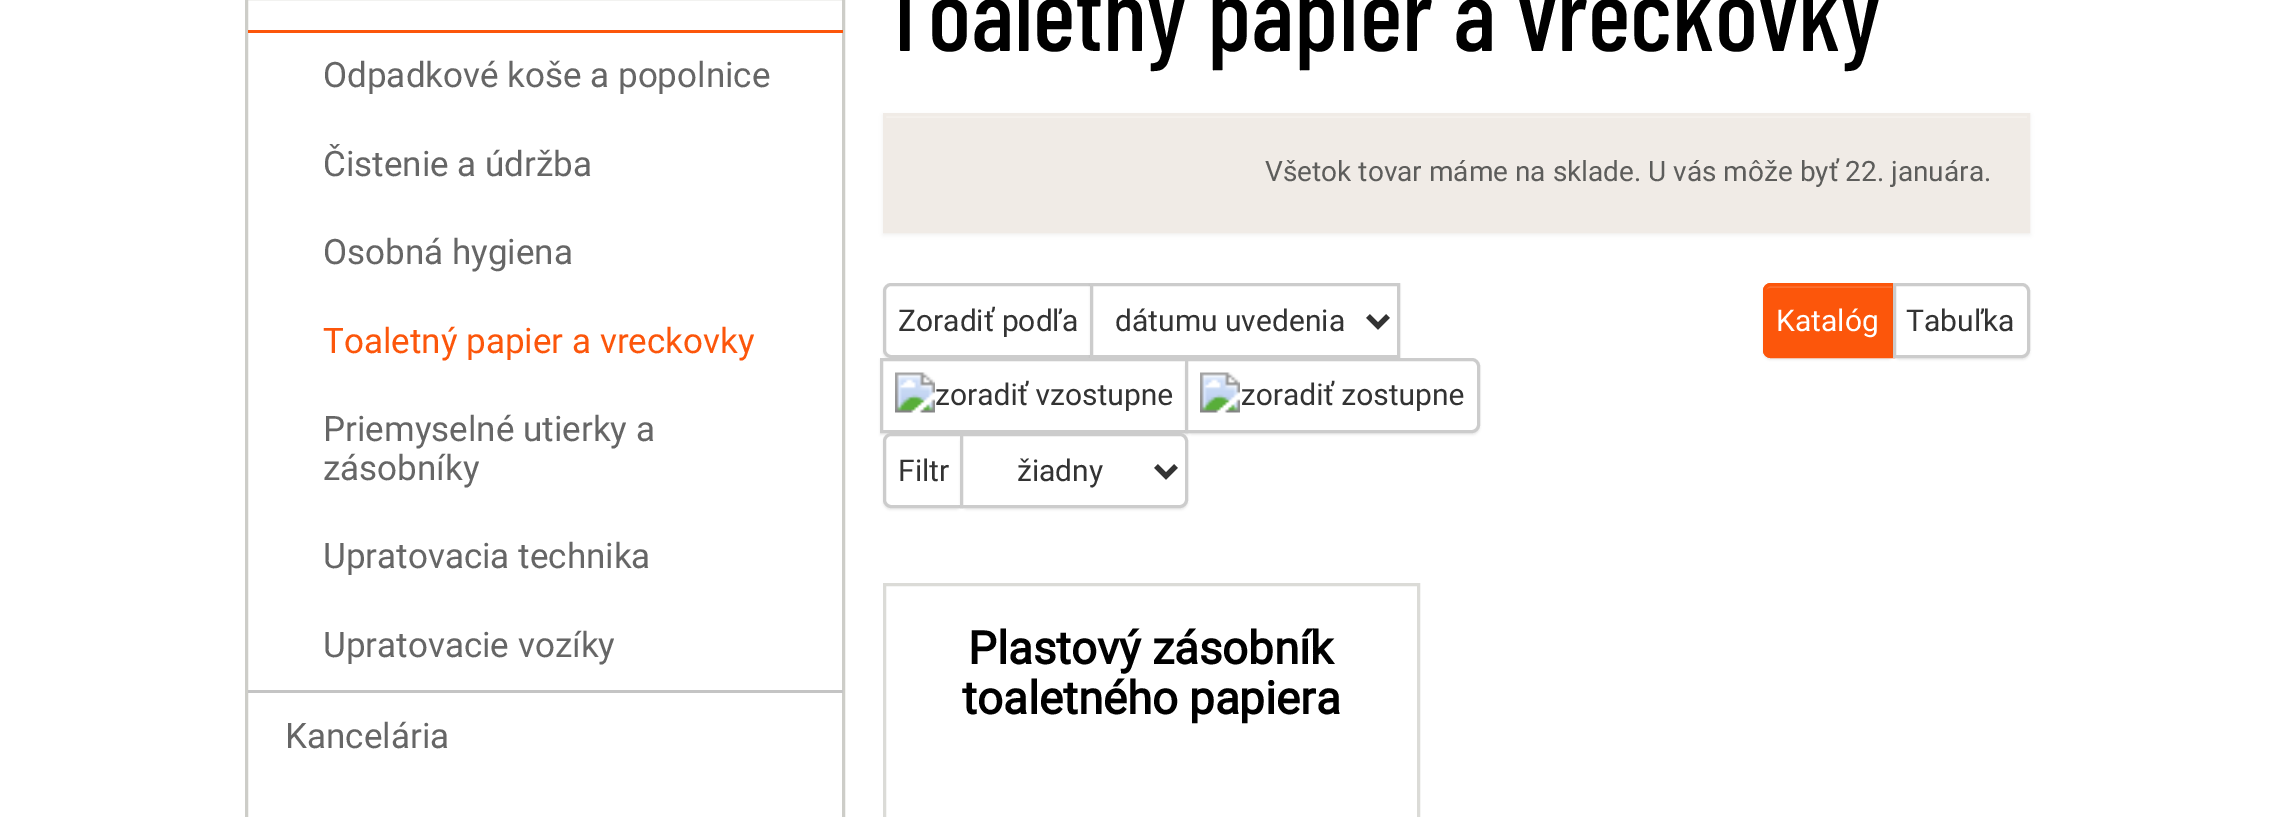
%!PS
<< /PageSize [2289 817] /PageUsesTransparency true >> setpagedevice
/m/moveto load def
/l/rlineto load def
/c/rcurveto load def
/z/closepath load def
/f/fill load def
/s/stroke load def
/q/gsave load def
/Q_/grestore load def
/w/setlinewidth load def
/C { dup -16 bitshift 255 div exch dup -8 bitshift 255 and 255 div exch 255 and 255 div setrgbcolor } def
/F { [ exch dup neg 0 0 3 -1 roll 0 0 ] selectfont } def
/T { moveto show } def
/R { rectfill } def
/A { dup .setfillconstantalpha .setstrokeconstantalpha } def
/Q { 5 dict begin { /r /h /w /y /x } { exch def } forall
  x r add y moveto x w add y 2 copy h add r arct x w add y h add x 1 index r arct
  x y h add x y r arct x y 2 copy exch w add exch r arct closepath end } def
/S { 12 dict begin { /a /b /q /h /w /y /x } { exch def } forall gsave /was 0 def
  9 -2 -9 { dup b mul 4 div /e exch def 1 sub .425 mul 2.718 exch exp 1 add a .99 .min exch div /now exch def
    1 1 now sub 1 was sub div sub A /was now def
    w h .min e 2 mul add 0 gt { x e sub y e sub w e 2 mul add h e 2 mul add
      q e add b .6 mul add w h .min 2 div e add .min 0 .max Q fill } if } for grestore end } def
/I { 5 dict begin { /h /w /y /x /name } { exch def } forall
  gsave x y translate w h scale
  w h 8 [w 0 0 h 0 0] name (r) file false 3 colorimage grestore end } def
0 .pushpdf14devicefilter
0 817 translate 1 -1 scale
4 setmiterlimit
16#FFFFFF C
0 0 2289 817 R
16#CDCDC8 C
3 w
246.5 -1.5 597 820 rectstroke
16#FC560B C
248 30 595 3 R
16#C4C4C4 C
248 690 595 3 R
/Roboto-Regular 35 F
16#666666 C
(Odpadkové koše a popolnice) 323 87 T
(Čistenie a údržba) 323 176 T
(Osobná hygiena) 323 264 T
16#FC560B C
(Toaletný papier a vreckovky) 323 353 T
16#666666 C
(Priemyselné utierky a) 323 441 T
(zásobníky) 323 480 T
(Upratovacia technika) 323 568 T
(Upratovacie vozíky) 323 657 T
(Kancelária) 285 748 T
/BarlowCondensed-Medium 101.5 F
16#000000 C
(Toaletný papier a vreckovky) 883 51 T
883 115 1147 120 0 2.5 .05 S
16#F0EBE6 C
886 118 1141 112 R
16#F4F0EC C
885 116 1143 2 R
16#F0EBE6 C
884.5 114.5 1144 117 rectstroke
/Roboto-Regular 28 F
16#5D5D5B C
(Všetok tovar máme na sklade. U vás môže byť 22. januára.) 1265 181 T
16#000000 C
883 285 210 75 8 1 .07 S
16#FFFFFF C
891 284.5 m 200.5 0 l 0 72 l -200.5 0 l -3.5 0 -6.5 -3 -6.5 -6.5 c 0 -59 l 0 -3.5 3 -6.5 6.5 -6.5 c z q f Q_
16#CCCCCC C
s
/Roboto-Regular 30 F
16#333333 C
(Zoradiť podľa) 898 331 T
16#000000 C
1090 285 310 75 0 1 .07 S
16#FFFFFF C
1091.5 284.5 m 307 0 l 0 72 l -307 0 l z q f Q_
16#CCCCCC C
s
16#333333 C
5 w
1368 316 m 10 10 l 10 -10 l s
(dátumu uvedenia) 1115 331 T
16#000000 C
880 360 308 75 0 1 .07 S
16#FFFFFF C
881.5 359.5 m 305 0 l 0 72 l -305 0 l z q f Q_
16#CCCCCC C
3 w
s
(1.rgb) 895 372 278 41 I
16#000000 C
1185 360 295 75 8 1 .07 S
16#FFFFFF C
1186.5 359.5 m 285.5 0 l 3.5 0 6.5 3 6.5 6.5 c 0 59 l 0 3.5 -3 6.5 -6.5 6.5 c -285.5 0 l z q f Q_
16#CCCCCC C
s
(2.rgb) 1200 372 264 41 I
16#000000 C
883 435 80 75 8 1 .07 S
16#FFFFFF C
891 434.5 m 70.5 0 l 0 72 l -70.5 0 l -3.5 0 -6.5 -3 -6.5 -6.5 c 0 -59 l 0 -3.5 3 -6.5 6.5 -6.5 c z q f Q_
16#CCCCCC C
s
16#333333 C
(Filtr) 898 481 T
16#000000 C
960 435 228 75 8 1 .07 S
16#FFFFFF C
961.5 434.5 m 218.5 0 l 3.5 0 6.5 3 6.5 6.5 c 0 59 l 0 3.5 -3 6.5 -6.5 6.5 c -218.5 0 l z q f Q_
16#CCCCCC C
s
16#333333 C
5 w
1156 466 m 10 10 l 10 -10 l s
(žiadny) 1017 481 T
16#000000 C
1763 285 132 75 8 1 .07 S
16#FC560B C
1771 283 m 124 0 l 0 75 l -124 0 l -4.5 0 -8 -3.5 -8 -8 c 0 -59 l 0 -4.5 3.5 -8 8 -8 c z f
16#FC6F30 C
1770 288 m 122 0 l 0 67 l 1 0 l 0 -70 l -123 0 l -3 0 -5 2 -5 5 c 0 2 l 0 -2 2 -4 5 -4 c z f
16#FC560B C
3 w
1771 284.5 m 122.5 0 l 0 72 l -122.5 0 l -3.5 0 -6.5 -3 -6.5 -6.5 c 0 -59 l 0 -3.5 3 -6.5 6.5 -6.5 c z s
16#FFFFFF C
(Katalóg) 1776 331 T
16#000000 C
1893 285 137 75 8 1 .07 S
16#FFFFFF C
1894.5 284.5 m 127.5 0 l 3.5 0 6.5 3 6.5 6.5 c 0 59 l 0 3.5 -3 6.5 -6.5 6.5 c -127.5 0 l z q f Q_
16#CCCCCC C
s
16#333333 C
(Tabuľka) 1906 331 T
16#DBDBD7 C
884.5 584.5 534 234 rectstroke
/Roboto-Bold 45.5 F
16#000000 C
(Plastový zásobník) 968 664 T
(toaletného papiera) 962 714 T
.poppdf14devicefilter showpage
